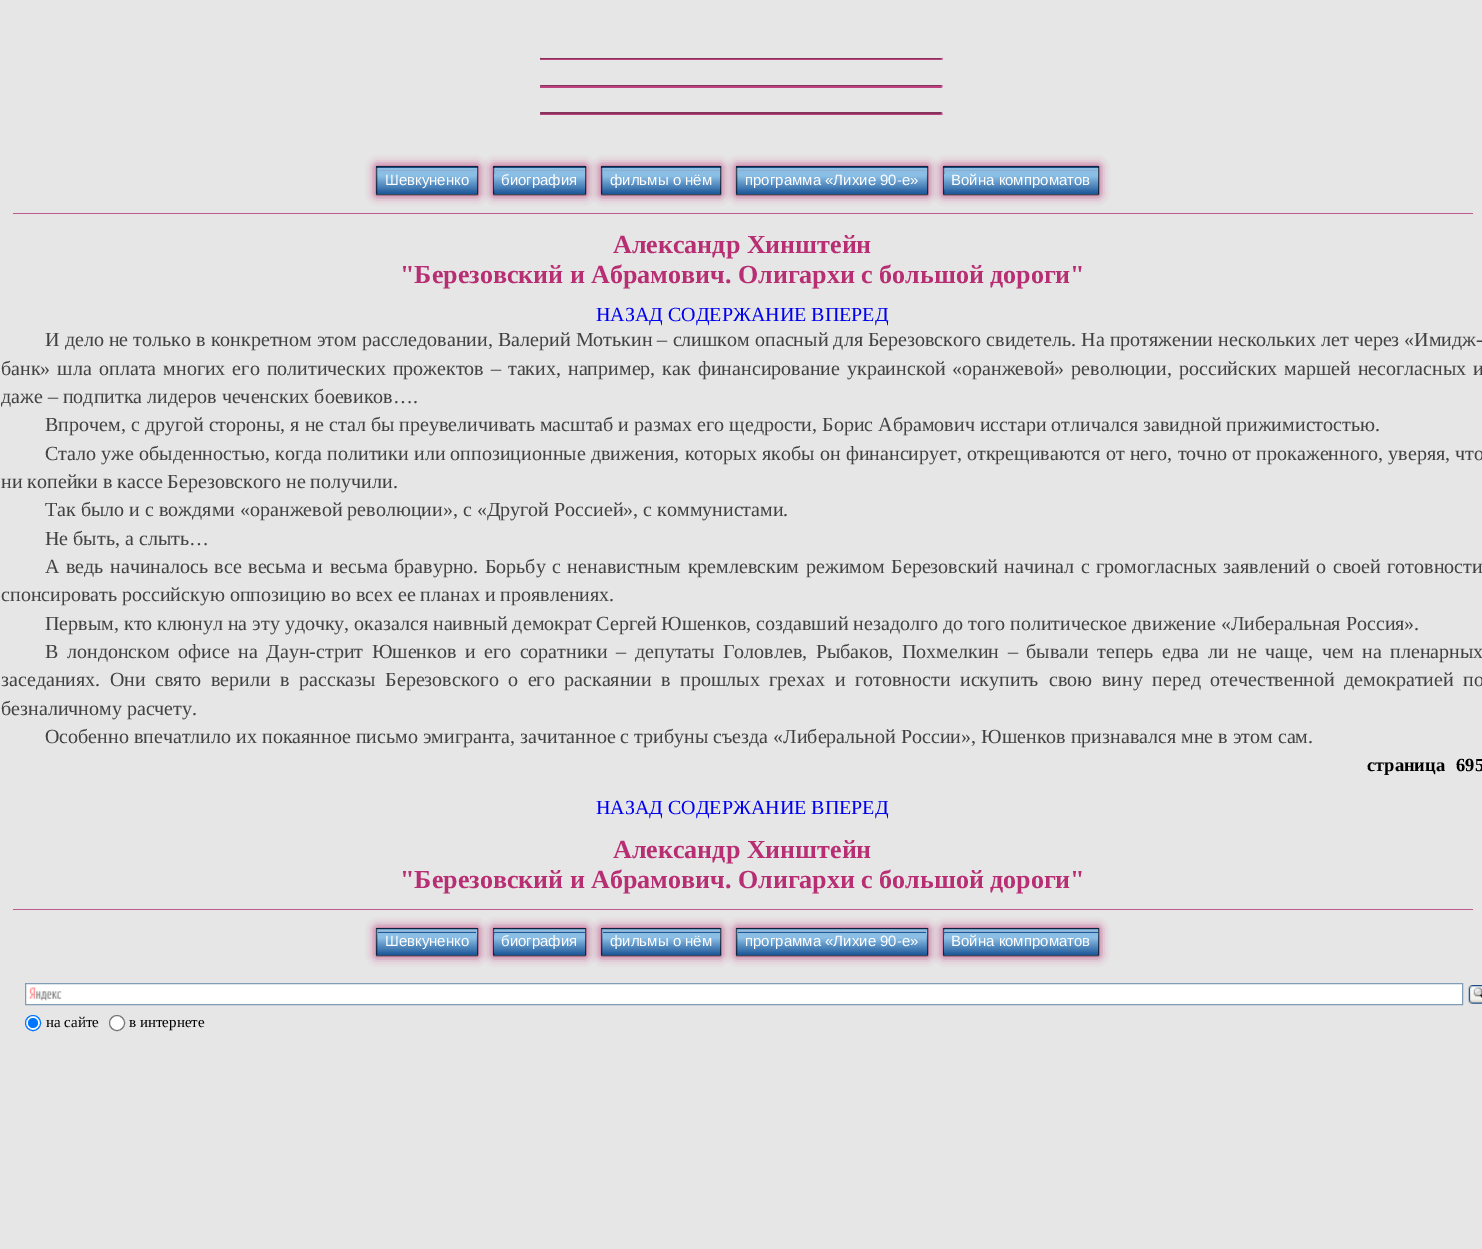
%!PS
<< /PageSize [1482 1249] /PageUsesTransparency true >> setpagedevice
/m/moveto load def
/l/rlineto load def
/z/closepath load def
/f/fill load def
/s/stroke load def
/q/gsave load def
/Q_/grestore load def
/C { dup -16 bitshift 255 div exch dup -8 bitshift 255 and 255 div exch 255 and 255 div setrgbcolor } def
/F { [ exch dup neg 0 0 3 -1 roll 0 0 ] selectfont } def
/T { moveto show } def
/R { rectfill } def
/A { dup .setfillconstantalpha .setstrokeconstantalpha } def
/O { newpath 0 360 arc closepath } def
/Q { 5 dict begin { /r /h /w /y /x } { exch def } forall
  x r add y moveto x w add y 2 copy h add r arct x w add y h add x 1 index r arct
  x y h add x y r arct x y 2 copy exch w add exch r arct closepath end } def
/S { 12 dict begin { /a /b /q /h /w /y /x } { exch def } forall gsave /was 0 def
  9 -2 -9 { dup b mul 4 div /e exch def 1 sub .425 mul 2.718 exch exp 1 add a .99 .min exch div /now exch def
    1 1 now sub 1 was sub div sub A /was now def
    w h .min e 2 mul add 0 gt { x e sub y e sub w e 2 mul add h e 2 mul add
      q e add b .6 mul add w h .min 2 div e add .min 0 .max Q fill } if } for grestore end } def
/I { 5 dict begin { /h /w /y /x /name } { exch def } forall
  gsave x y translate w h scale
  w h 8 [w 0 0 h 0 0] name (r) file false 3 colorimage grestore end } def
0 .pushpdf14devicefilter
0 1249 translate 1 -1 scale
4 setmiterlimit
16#E6E6E6 C
0 0 1482 1249 R
16#86335C C
540 58 m 402 0 l -1 1 l -400 0 l z f
0.9 A
16#B82E73 C
942.5 57.5 m 0 2.5 l -1.5 -1 l z f
942 60 m -402 0 l 1 -1 l 400 0 l z f
16#7B1F4D C
540 60 m 0 -2.5 l 1 1.5 l z f
1 A
16#86335C C
540 85 m 402 0 l -1 1 l -400 0 l z f
0.9 A
16#B82E73 C
942.5 85 m 0 2.5 l -1.5 -1.5 l z f
1 A
16#BD407F C
942 88 m -402 0 l 1 -2 l 400 0 l z f
0.9 A
16#7B1F4D C
540 87.5 m 0 -2.5 l 1 1 l z f
1 A
16#86335C C
540 112 m 402 0 l -1 2 l -400 0 l z f
0.9 A
16#B82E73 C
942.5 112.5 m 0 2.5 l -1.5 -1 l z f
942 115 m -402 0 l 1 -1 l 400 0 l z f
16#7B1F4D C
540 115 m 0 -2.5 l 1 1.5 l z f
1 A
16#C0598C C
13 213 1460 1 R
16#B82E73 C
376 166 102 29 0 5 1 S
q 376 166 m 102 0 l 0 2 l -102 0 l z clip newpath
<< /ShadingType 2 /ColorSpace /DeviceRGB /Coords [427 141 427 168] /Extend [true true] /Function << /FunctionType 3 /Domain [0 1] /Functions [<< /FunctionType 2 /Domain [0 1] /C0 [.541 .745 .898] /C1 [.541 .745 .898] /N 1 >> << /FunctionType 2 /Domain [0 1] /C0 [.541 .745 .898] /C1 [.118 .345 .6] /N 1 >>] /Bounds [.22] /Encode [0 1 0 1] >> >> shfill Q_
q 376 168 m 102 0 l 0 26 l -102 0 l z clip newpath
<< /ShadingType 2 /ColorSpace /DeviceRGB /Coords [427 168 427 194] /Extend [true true] /Function << /FunctionType 3 /Domain [0 1] /Functions [<< /FunctionType 2 /Domain [0 1] /C0 [.541 .745 .898] /C1 [.541 .745 .898] /N 1 >> << /FunctionType 2 /Domain [0 1] /C0 [.541 .745 .898] /C1 [.118 .345 .6] /N 1 >>] /Bounds [.22] /Encode [0 1 0 1] >> >> shfill Q_
q 376 194 m 102 0 l 0 1 l -102 0 l z clip newpath
<< /ShadingType 2 /ColorSpace /DeviceRGB /Coords [427 194 427 220] /Extend [true true] /Function << /FunctionType 3 /Domain [0 1] /Functions [<< /FunctionType 2 /Domain [0 1] /C0 [.541 .745 .898] /C1 [.541 .745 .898] /N 1 >> << /FunctionType 2 /Domain [0 1] /C0 [.541 .745 .898] /C1 [.118 .345 .6] /N 1 >>] /Bounds [.22] /Encode [0 1 0 1] >> >> shfill Q_
0.6 A
16#000000 C
376.5 166.5 101 28 rectstroke
1 A
q 378 174 m 98 0 l 0 16 l -98 0 l z clip newpath
<< /ShadingType 2 /ColorSpace /DeviceRGB /Coords [427 171 427 194] /Extend [true true] /Function << /FunctionType 3 /Domain [0 1] /Functions [<< /FunctionType 2 /Domain [0 1] /C0 [.541 .745 .898] /C1 [.541 .745 .898] /N 1 >> << /FunctionType 2 /Domain [0 1] /C0 [.541 .745 .898] /C1 [.118 .345 .6] /N 1 >>] /Bounds [.22] /Encode [0 1 0 1] >> >> shfill Q_
16#90ADCD C
378 170 98 1 R
/LiberationSans-Regular 15 F
16#FFFFFF C
(Шевкуненко) 385 185 T
16#B82E73 C
493 166 93 29 0 5 1 S
q 493 166 m 93 0 l 0 2 l -93 0 l z clip newpath
<< /ShadingType 2 /ColorSpace /DeviceRGB /Coords [539 141 539 168] /Extend [true true] /Function << /FunctionType 3 /Domain [0 1] /Functions [<< /FunctionType 2 /Domain [0 1] /C0 [.541 .745 .898] /C1 [.541 .745 .898] /N 1 >> << /FunctionType 2 /Domain [0 1] /C0 [.541 .745 .898] /C1 [.118 .345 .6] /N 1 >>] /Bounds [.22] /Encode [0 1 0 1] >> >> shfill Q_
q 493 168 m 93 0 l 0 26 l -93 0 l z clip newpath
<< /ShadingType 2 /ColorSpace /DeviceRGB /Coords [539 168 539 194] /Extend [true true] /Function << /FunctionType 3 /Domain [0 1] /Functions [<< /FunctionType 2 /Domain [0 1] /C0 [.541 .745 .898] /C1 [.541 .745 .898] /N 1 >> << /FunctionType 2 /Domain [0 1] /C0 [.541 .745 .898] /C1 [.118 .345 .6] /N 1 >>] /Bounds [.22] /Encode [0 1 0 1] >> >> shfill Q_
q 493 194 m 93 0 l 0 1 l -93 0 l z clip newpath
<< /ShadingType 2 /ColorSpace /DeviceRGB /Coords [539 194 539 220] /Extend [true true] /Function << /FunctionType 3 /Domain [0 1] /Functions [<< /FunctionType 2 /Domain [0 1] /C0 [.541 .745 .898] /C1 [.541 .745 .898] /N 1 >> << /FunctionType 2 /Domain [0 1] /C0 [.541 .745 .898] /C1 [.118 .345 .6] /N 1 >>] /Bounds [.22] /Encode [0 1 0 1] >> >> shfill Q_
0.6 A
16#000000 C
493.5 166.5 92 28 rectstroke
1 A
q 494 174 m 91 0 l 0 16 l -91 0 l z clip newpath
<< /ShadingType 2 /ColorSpace /DeviceRGB /Coords [539 171 539 194] /Extend [true true] /Function << /FunctionType 3 /Domain [0 1] /Functions [<< /FunctionType 2 /Domain [0 1] /C0 [.541 .745 .898] /C1 [.541 .745 .898] /N 1 >> << /FunctionType 2 /Domain [0 1] /C0 [.541 .745 .898] /C1 [.118 .345 .6] /N 1 >>] /Bounds [.22] /Encode [0 1 0 1] >> >> shfill Q_
16#90ADCD C
494 170 91 1 R
16#FFFFFF C
(биография) 501 185 T
16#B82E73 C
601 166 120 29 0 5 1 S
q 601 166 m 120 0 l 0 2 l -120 0 l z clip newpath
<< /ShadingType 2 /ColorSpace /DeviceRGB /Coords [661 141 661 168] /Extend [true true] /Function << /FunctionType 3 /Domain [0 1] /Functions [<< /FunctionType 2 /Domain [0 1] /C0 [.541 .745 .898] /C1 [.541 .745 .898] /N 1 >> << /FunctionType 2 /Domain [0 1] /C0 [.541 .745 .898] /C1 [.118 .345 .6] /N 1 >>] /Bounds [.22] /Encode [0 1 0 1] >> >> shfill Q_
q 601 168 m 120 0 l 0 26 l -120 0 l z clip newpath
<< /ShadingType 2 /ColorSpace /DeviceRGB /Coords [661 168 661 194] /Extend [true true] /Function << /FunctionType 3 /Domain [0 1] /Functions [<< /FunctionType 2 /Domain [0 1] /C0 [.541 .745 .898] /C1 [.541 .745 .898] /N 1 >> << /FunctionType 2 /Domain [0 1] /C0 [.541 .745 .898] /C1 [.118 .345 .6] /N 1 >>] /Bounds [.22] /Encode [0 1 0 1] >> >> shfill Q_
q 601 194 m 120 0 l 0 1 l -120 0 l z clip newpath
<< /ShadingType 2 /ColorSpace /DeviceRGB /Coords [661 194 661 220] /Extend [true true] /Function << /FunctionType 3 /Domain [0 1] /Functions [<< /FunctionType 2 /Domain [0 1] /C0 [.541 .745 .898] /C1 [.541 .745 .898] /N 1 >> << /FunctionType 2 /Domain [0 1] /C0 [.541 .745 .898] /C1 [.118 .345 .6] /N 1 >>] /Bounds [.22] /Encode [0 1 0 1] >> >> shfill Q_
0.6 A
16#000000 C
601.5 166.5 119 28 rectstroke
1 A
q 603 174 m 117 0 l 0 16 l -117 0 l z clip newpath
<< /ShadingType 2 /ColorSpace /DeviceRGB /Coords [661 171 661 194] /Extend [true true] /Function << /FunctionType 3 /Domain [0 1] /Functions [<< /FunctionType 2 /Domain [0 1] /C0 [.541 .745 .898] /C1 [.541 .745 .898] /N 1 >> << /FunctionType 2 /Domain [0 1] /C0 [.541 .745 .898] /C1 [.118 .345 .6] /N 1 >>] /Bounds [.22] /Encode [0 1 0 1] >> >> shfill Q_
16#90ADCD C
603 170 117 1 R
16#FFFFFF C
(фильмы о нём) 610 185 T
16#B82E73 C
736 166 192 29 0 5 1 S
q 736 166 m 192 0 l 0 2 l -192 0 l z clip newpath
<< /ShadingType 2 /ColorSpace /DeviceRGB /Coords [832 141 832 168] /Extend [true true] /Function << /FunctionType 3 /Domain [0 1] /Functions [<< /FunctionType 2 /Domain [0 1] /C0 [.541 .745 .898] /C1 [.541 .745 .898] /N 1 >> << /FunctionType 2 /Domain [0 1] /C0 [.541 .745 .898] /C1 [.118 .345 .6] /N 1 >>] /Bounds [.22] /Encode [0 1 0 1] >> >> shfill Q_
q 736 168 m 192 0 l 0 26 l -192 0 l z clip newpath
<< /ShadingType 2 /ColorSpace /DeviceRGB /Coords [832 168 832 194] /Extend [true true] /Function << /FunctionType 3 /Domain [0 1] /Functions [<< /FunctionType 2 /Domain [0 1] /C0 [.541 .745 .898] /C1 [.541 .745 .898] /N 1 >> << /FunctionType 2 /Domain [0 1] /C0 [.541 .745 .898] /C1 [.118 .345 .6] /N 1 >>] /Bounds [.22] /Encode [0 1 0 1] >> >> shfill Q_
q 736 194 m 192 0 l 0 1 l -192 0 l z clip newpath
<< /ShadingType 2 /ColorSpace /DeviceRGB /Coords [832 194 832 220] /Extend [true true] /Function << /FunctionType 3 /Domain [0 1] /Functions [<< /FunctionType 2 /Domain [0 1] /C0 [.541 .745 .898] /C1 [.541 .745 .898] /N 1 >> << /FunctionType 2 /Domain [0 1] /C0 [.541 .745 .898] /C1 [.118 .345 .6] /N 1 >>] /Bounds [.22] /Encode [0 1 0 1] >> >> shfill Q_
0.6 A
16#000000 C
736.5 166.5 191 28 rectstroke
1 A
q 738 174 m 188 0 l 0 16 l -188 0 l z clip newpath
<< /ShadingType 2 /ColorSpace /DeviceRGB /Coords [832 171 832 194] /Extend [true true] /Function << /FunctionType 3 /Domain [0 1] /Functions [<< /FunctionType 2 /Domain [0 1] /C0 [.541 .745 .898] /C1 [.541 .745 .898] /N 1 >> << /FunctionType 2 /Domain [0 1] /C0 [.541 .745 .898] /C1 [.118 .345 .6] /N 1 >>] /Bounds [.22] /Encode [0 1 0 1] >> >> shfill Q_
16#90ADCD C
738 170 188 1 R
16#FFFFFF C
(программа «Лихие 90-е») 745 185 T
16#B82E73 C
943 166 156 29 0 5 1 S
q 943 166 m 156 0 l 0 2 l -156 0 l z clip newpath
<< /ShadingType 2 /ColorSpace /DeviceRGB /Coords [1021 141 1021 168] /Extend [true true] /Function << /FunctionType 3 /Domain [0 1] /Functions [<< /FunctionType 2 /Domain [0 1] /C0 [.541 .745 .898] /C1 [.541 .745 .898] /N 1 >> << /FunctionType 2 /Domain [0 1] /C0 [.541 .745 .898] /C1 [.118 .345 .6] /N 1 >>] /Bounds [.22] /Encode [0 1 0 1] >> >> shfill Q_
q 943 168 m 156 0 l 0 26 l -156 0 l z clip newpath
<< /ShadingType 2 /ColorSpace /DeviceRGB /Coords [1021 168 1021 194] /Extend [true true] /Function << /FunctionType 3 /Domain [0 1] /Functions [<< /FunctionType 2 /Domain [0 1] /C0 [.541 .745 .898] /C1 [.541 .745 .898] /N 1 >> << /FunctionType 2 /Domain [0 1] /C0 [.541 .745 .898] /C1 [.118 .345 .6] /N 1 >>] /Bounds [.22] /Encode [0 1 0 1] >> >> shfill Q_
q 943 194 m 156 0 l 0 1 l -156 0 l z clip newpath
<< /ShadingType 2 /ColorSpace /DeviceRGB /Coords [1021 194 1021 220] /Extend [true true] /Function << /FunctionType 3 /Domain [0 1] /Functions [<< /FunctionType 2 /Domain [0 1] /C0 [.541 .745 .898] /C1 [.541 .745 .898] /N 1 >> << /FunctionType 2 /Domain [0 1] /C0 [.541 .745 .898] /C1 [.118 .345 .6] /N 1 >>] /Bounds [.22] /Encode [0 1 0 1] >> >> shfill Q_
0.6 A
16#000000 C
943.5 166.5 155 28 rectstroke
1 A
q 944 174 m 154 0 l 0 16 l -154 0 l z clip newpath
<< /ShadingType 2 /ColorSpace /DeviceRGB /Coords [1021 171 1021 194] /Extend [true true] /Function << /FunctionType 3 /Domain [0 1] /Functions [<< /FunctionType 2 /Domain [0 1] /C0 [.541 .745 .898] /C1 [.541 .745 .898] /N 1 >> << /FunctionType 2 /Domain [0 1] /C0 [.541 .745 .898] /C1 [.118 .345 .6] /N 1 >>] /Bounds [.22] /Encode [0 1 0 1] >> >> shfill Q_
16#90ADCD C
944 170 154 1 R
16#FFFFFF C
(Война компроматов) 951 185 T
/LiberationSerif-Bold 26 F
16#B82E73 C
(Александр Хинштейн) 613 253 T
("Березовский и Абрамович. Олигархи с большой дороги") 400 283 T
/LiberationSerif-Regular 20 F
16#0000EE C
(НАЗАД СОДЕРЖАНИЕ ВПЕРЕД) 596 321 T
16#424242 C
45 346 m .1 0 32 (И дело не только в конкретном этом расследовании, Валерий Мотькин – слишком опасный для Березовского свидетель. На протяжении нескольких лет через «Имидж-) widthshow
1 375 m 2 0 32 (банк» шла) widthshow
99 375 m 2 0 32 (оплата многих его политических прожектов – таких, например, как финансирование украинской) widthshow
952 375 m 2 0 32 («оранжевой» революции, российских маршей несогласных и) widthshow
(даже – подпитка лидеров чеченских боевиков….) 1 403 T
(Впрочем, с другой стороны, я не стал бы преувеличивать масштаб и размах его щедрости, Борис Абрамович исстари отличался завидной прижимистостью.) 45 431 T
45 460 m .25 0 32 (Стало уже обыденностью, когда политики или оппозиционные движения, которых якобы он финансирует, открещиваются от него, точно от прокаженного, уверяя, что) widthshow
(ни копейки в кассе Березовского не получили.) 1 488 T
(Так было и с вождями «оранжевой революции», с «Другой Россией», с коммунистами.) 45 516 T
(Не быть, а слыть…) 45 545 T
45 573 m 1.5 0 32 (А ведь начиналось все весьма и весьма бравурно. Борьбу с ненавистным кремлевским) widthshow
806 573 m 1.5 0 32 (режимом Березовский начинал с громогласных заявлений о своей готовности) widthshow
(спонсировать российскую оппозицию во всех ее планах и проявлениях.) 1 601 T
(Первым, кто клюнул на эту удочку, оказался наивный демократ Сергей Юшенков, создавший незадолго до того политическое движение «Либеральная Россия».) 45 630 T
45 658 m 3.5 0 32 (В лондонском офисе на Даун-стрит Юшенков и его соратники – депутаты Головлев, Рыбаков,) widthshow
902 658 m 3.5 0 32 (Похмелкин – бывали теперь едва ли не чаще, чем на пленарных) widthshow
1 686 m 4.5 0 32 (заседаниях. Они свято) widthshow
211 686 m 4.5 0 32 (верили в рассказы Березовского о его раскаянии в прошлых грехах и готовности искупить) widthshow
1049 686 m 4.5 0 32 (свою вину перед отечественной демократией по) widthshow
(безналичному расчету.) 1 715 T
(Особенно впечатлило их покаянное письмо эмигранта, зачитанное с трибуны съезда «Либеральной России», Юшенков признавался мне в этом сам.) 45 743 T
/LiberationSerif-Bold 18.5 F
16#000000 C
(страница) 1367 771 T
(695) 1456 771 T
/LiberationSerif-Regular 20 F
16#0000EE C
(НАЗАД СОДЕРЖАНИЕ ВПЕРЕД) 596 814 T
/LiberationSerif-Bold 26 F
16#B82E73 C
(Александр Хинштейн) 613 858 T
("Березовский и Абрамович. Олигархи с большой дороги") 400 888 T
16#C0598C C
13 909 1460 1 R
16#B82E73 C
376 928 102 28 0 5 1 S
q 376 928 m 102 0 l 0 1 l -102 0 l z clip newpath
<< /ShadingType 2 /ColorSpace /DeviceRGB /Coords [427 903 427 929] /Extend [true true] /Function << /FunctionType 3 /Domain [0 1] /Functions [<< /FunctionType 2 /Domain [0 1] /C0 [.541 .745 .898] /C1 [.541 .745 .898] /N 1 >> << /FunctionType 2 /Domain [0 1] /C0 [.541 .745 .898] /C1 [.118 .345 .6] /N 1 >>] /Bounds [.22] /Encode [0 1 0 1] >> >> shfill Q_
q 376 929 m 102 0 l 0 26 l -102 0 l z clip newpath
<< /ShadingType 2 /ColorSpace /DeviceRGB /Coords [427 929 427 955] /Extend [true true] /Function << /FunctionType 3 /Domain [0 1] /Functions [<< /FunctionType 2 /Domain [0 1] /C0 [.541 .745 .898] /C1 [.541 .745 .898] /N 1 >> << /FunctionType 2 /Domain [0 1] /C0 [.541 .745 .898] /C1 [.118 .345 .6] /N 1 >>] /Bounds [.22] /Encode [0 1 0 1] >> >> shfill Q_
q 376 955 m 102 0 l 0 1 l -102 0 l z clip newpath
<< /ShadingType 2 /ColorSpace /DeviceRGB /Coords [427 955 427 981] /Extend [true true] /Function << /FunctionType 3 /Domain [0 1] /Functions [<< /FunctionType 2 /Domain [0 1] /C0 [.541 .745 .898] /C1 [.541 .745 .898] /N 1 >> << /FunctionType 2 /Domain [0 1] /C0 [.541 .745 .898] /C1 [.118 .345 .6] /N 1 >>] /Bounds [.22] /Encode [0 1 0 1] >> >> shfill Q_
0.6 A
16#000000 C
376.5 928.5 101 27 rectstroke
1 A
q 378 932 m 98 0 l 0 1 l -98 0 l z clip newpath
<< /ShadingType 2 /ColorSpace /DeviceRGB /Coords [427 910 427 933] /Extend [true true] /Function << /FunctionType 3 /Domain [0 1] /Functions [<< /FunctionType 2 /Domain [0 1] /C0 [.541 .745 .898] /C1 [.541 .745 .898] /N 1 >> << /FunctionType 2 /Domain [0 1] /C0 [.541 .745 .898] /C1 [.118 .345 .6] /N 1 >>] /Bounds [.22] /Encode [0 1 0 1] >> >> shfill Q_
q 378 935 m 98 0 l 0 18 l -98 0 l z clip newpath
<< /ShadingType 2 /ColorSpace /DeviceRGB /Coords [427 933 427 955] /Extend [true true] /Function << /FunctionType 3 /Domain [0 1] /Functions [<< /FunctionType 2 /Domain [0 1] /C0 [.541 .745 .898] /C1 [.541 .745 .898] /N 1 >> << /FunctionType 2 /Domain [0 1] /C0 [.541 .745 .898] /C1 [.118 .345 .6] /N 1 >>] /Bounds [.22] /Encode [0 1 0 1] >> >> shfill Q_
16#93B0CF C
378 931 98 1 R
/LiberationSans-Regular 15 F
16#FFFFFF C
(Шевкуненко) 385 946 T
16#B82E73 C
493 928 93 28 0 5 1 S
q 493 928 m 93 0 l 0 1 l -93 0 l z clip newpath
<< /ShadingType 2 /ColorSpace /DeviceRGB /Coords [539 903 539 929] /Extend [true true] /Function << /FunctionType 3 /Domain [0 1] /Functions [<< /FunctionType 2 /Domain [0 1] /C0 [.541 .745 .898] /C1 [.541 .745 .898] /N 1 >> << /FunctionType 2 /Domain [0 1] /C0 [.541 .745 .898] /C1 [.118 .345 .6] /N 1 >>] /Bounds [.22] /Encode [0 1 0 1] >> >> shfill Q_
q 493 929 m 93 0 l 0 26 l -93 0 l z clip newpath
<< /ShadingType 2 /ColorSpace /DeviceRGB /Coords [539 929 539 955] /Extend [true true] /Function << /FunctionType 3 /Domain [0 1] /Functions [<< /FunctionType 2 /Domain [0 1] /C0 [.541 .745 .898] /C1 [.541 .745 .898] /N 1 >> << /FunctionType 2 /Domain [0 1] /C0 [.541 .745 .898] /C1 [.118 .345 .6] /N 1 >>] /Bounds [.22] /Encode [0 1 0 1] >> >> shfill Q_
q 493 955 m 93 0 l 0 1 l -93 0 l z clip newpath
<< /ShadingType 2 /ColorSpace /DeviceRGB /Coords [539 955 539 981] /Extend [true true] /Function << /FunctionType 3 /Domain [0 1] /Functions [<< /FunctionType 2 /Domain [0 1] /C0 [.541 .745 .898] /C1 [.541 .745 .898] /N 1 >> << /FunctionType 2 /Domain [0 1] /C0 [.541 .745 .898] /C1 [.118 .345 .6] /N 1 >>] /Bounds [.22] /Encode [0 1 0 1] >> >> shfill Q_
0.6 A
16#000000 C
493.5 928.5 92 27 rectstroke
1 A
q 494 932 m 91 0 l 0 1 l -91 0 l z clip newpath
<< /ShadingType 2 /ColorSpace /DeviceRGB /Coords [539 910 539 933] /Extend [true true] /Function << /FunctionType 3 /Domain [0 1] /Functions [<< /FunctionType 2 /Domain [0 1] /C0 [.541 .745 .898] /C1 [.541 .745 .898] /N 1 >> << /FunctionType 2 /Domain [0 1] /C0 [.541 .745 .898] /C1 [.118 .345 .6] /N 1 >>] /Bounds [.22] /Encode [0 1 0 1] >> >> shfill Q_
q 494 935 m 91 0 l 0 18 l -91 0 l z clip newpath
<< /ShadingType 2 /ColorSpace /DeviceRGB /Coords [539 933 539 955] /Extend [true true] /Function << /FunctionType 3 /Domain [0 1] /Functions [<< /FunctionType 2 /Domain [0 1] /C0 [.541 .745 .898] /C1 [.541 .745 .898] /N 1 >> << /FunctionType 2 /Domain [0 1] /C0 [.541 .745 .898] /C1 [.118 .345 .6] /N 1 >>] /Bounds [.22] /Encode [0 1 0 1] >> >> shfill Q_
16#93B0CF C
494 931 91 1 R
16#FFFFFF C
(биография) 501 946 T
16#B82E73 C
601 928 120 28 0 5 1 S
q 601 928 m 120 0 l 0 1 l -120 0 l z clip newpath
<< /ShadingType 2 /ColorSpace /DeviceRGB /Coords [661 903 661 929] /Extend [true true] /Function << /FunctionType 3 /Domain [0 1] /Functions [<< /FunctionType 2 /Domain [0 1] /C0 [.541 .745 .898] /C1 [.541 .745 .898] /N 1 >> << /FunctionType 2 /Domain [0 1] /C0 [.541 .745 .898] /C1 [.118 .345 .6] /N 1 >>] /Bounds [.22] /Encode [0 1 0 1] >> >> shfill Q_
q 601 929 m 120 0 l 0 26 l -120 0 l z clip newpath
<< /ShadingType 2 /ColorSpace /DeviceRGB /Coords [661 929 661 955] /Extend [true true] /Function << /FunctionType 3 /Domain [0 1] /Functions [<< /FunctionType 2 /Domain [0 1] /C0 [.541 .745 .898] /C1 [.541 .745 .898] /N 1 >> << /FunctionType 2 /Domain [0 1] /C0 [.541 .745 .898] /C1 [.118 .345 .6] /N 1 >>] /Bounds [.22] /Encode [0 1 0 1] >> >> shfill Q_
q 601 955 m 120 0 l 0 1 l -120 0 l z clip newpath
<< /ShadingType 2 /ColorSpace /DeviceRGB /Coords [661 955 661 981] /Extend [true true] /Function << /FunctionType 3 /Domain [0 1] /Functions [<< /FunctionType 2 /Domain [0 1] /C0 [.541 .745 .898] /C1 [.541 .745 .898] /N 1 >> << /FunctionType 2 /Domain [0 1] /C0 [.541 .745 .898] /C1 [.118 .345 .6] /N 1 >>] /Bounds [.22] /Encode [0 1 0 1] >> >> shfill Q_
0.6 A
16#000000 C
601.5 928.5 119 27 rectstroke
1 A
q 603 932 m 117 0 l 0 1 l -117 0 l z clip newpath
<< /ShadingType 2 /ColorSpace /DeviceRGB /Coords [661 910 661 933] /Extend [true true] /Function << /FunctionType 3 /Domain [0 1] /Functions [<< /FunctionType 2 /Domain [0 1] /C0 [.541 .745 .898] /C1 [.541 .745 .898] /N 1 >> << /FunctionType 2 /Domain [0 1] /C0 [.541 .745 .898] /C1 [.118 .345 .6] /N 1 >>] /Bounds [.22] /Encode [0 1 0 1] >> >> shfill Q_
q 603 935 m 117 0 l 0 18 l -117 0 l z clip newpath
<< /ShadingType 2 /ColorSpace /DeviceRGB /Coords [661 933 661 955] /Extend [true true] /Function << /FunctionType 3 /Domain [0 1] /Functions [<< /FunctionType 2 /Domain [0 1] /C0 [.541 .745 .898] /C1 [.541 .745 .898] /N 1 >> << /FunctionType 2 /Domain [0 1] /C0 [.541 .745 .898] /C1 [.118 .345 .6] /N 1 >>] /Bounds [.22] /Encode [0 1 0 1] >> >> shfill Q_
16#93B0CF C
603 931 117 1 R
16#FFFFFF C
(фильмы о нём) 610 946 T
16#B82E73 C
736 928 192 28 0 5 1 S
q 736 928 m 192 0 l 0 1 l -192 0 l z clip newpath
<< /ShadingType 2 /ColorSpace /DeviceRGB /Coords [832 903 832 929] /Extend [true true] /Function << /FunctionType 3 /Domain [0 1] /Functions [<< /FunctionType 2 /Domain [0 1] /C0 [.541 .745 .898] /C1 [.541 .745 .898] /N 1 >> << /FunctionType 2 /Domain [0 1] /C0 [.541 .745 .898] /C1 [.118 .345 .6] /N 1 >>] /Bounds [.22] /Encode [0 1 0 1] >> >> shfill Q_
q 736 929 m 192 0 l 0 26 l -192 0 l z clip newpath
<< /ShadingType 2 /ColorSpace /DeviceRGB /Coords [832 929 832 955] /Extend [true true] /Function << /FunctionType 3 /Domain [0 1] /Functions [<< /FunctionType 2 /Domain [0 1] /C0 [.541 .745 .898] /C1 [.541 .745 .898] /N 1 >> << /FunctionType 2 /Domain [0 1] /C0 [.541 .745 .898] /C1 [.118 .345 .6] /N 1 >>] /Bounds [.22] /Encode [0 1 0 1] >> >> shfill Q_
q 736 955 m 192 0 l 0 1 l -192 0 l z clip newpath
<< /ShadingType 2 /ColorSpace /DeviceRGB /Coords [832 955 832 981] /Extend [true true] /Function << /FunctionType 3 /Domain [0 1] /Functions [<< /FunctionType 2 /Domain [0 1] /C0 [.541 .745 .898] /C1 [.541 .745 .898] /N 1 >> << /FunctionType 2 /Domain [0 1] /C0 [.541 .745 .898] /C1 [.118 .345 .6] /N 1 >>] /Bounds [.22] /Encode [0 1 0 1] >> >> shfill Q_
0.6 A
16#000000 C
736.5 928.5 191 27 rectstroke
1 A
q 738 932 m 188 0 l 0 1 l -188 0 l z clip newpath
<< /ShadingType 2 /ColorSpace /DeviceRGB /Coords [832 910 832 933] /Extend [true true] /Function << /FunctionType 3 /Domain [0 1] /Functions [<< /FunctionType 2 /Domain [0 1] /C0 [.541 .745 .898] /C1 [.541 .745 .898] /N 1 >> << /FunctionType 2 /Domain [0 1] /C0 [.541 .745 .898] /C1 [.118 .345 .6] /N 1 >>] /Bounds [.22] /Encode [0 1 0 1] >> >> shfill Q_
q 738 935 m 188 0 l 0 18 l -188 0 l z clip newpath
<< /ShadingType 2 /ColorSpace /DeviceRGB /Coords [832 933 832 955] /Extend [true true] /Function << /FunctionType 3 /Domain [0 1] /Functions [<< /FunctionType 2 /Domain [0 1] /C0 [.541 .745 .898] /C1 [.541 .745 .898] /N 1 >> << /FunctionType 2 /Domain [0 1] /C0 [.541 .745 .898] /C1 [.118 .345 .6] /N 1 >>] /Bounds [.22] /Encode [0 1 0 1] >> >> shfill Q_
16#93B0CF C
738 931 188 1 R
16#FFFFFF C
(программа «Лихие 90-е») 745 946 T
16#B82E73 C
943 928 156 28 0 5 1 S
q 943 928 m 156 0 l 0 1 l -156 0 l z clip newpath
<< /ShadingType 2 /ColorSpace /DeviceRGB /Coords [1021 903 1021 929] /Extend [true true] /Function << /FunctionType 3 /Domain [0 1] /Functions [<< /FunctionType 2 /Domain [0 1] /C0 [.541 .745 .898] /C1 [.541 .745 .898] /N 1 >> << /FunctionType 2 /Domain [0 1] /C0 [.541 .745 .898] /C1 [.118 .345 .6] /N 1 >>] /Bounds [.22] /Encode [0 1 0 1] >> >> shfill Q_
q 943 929 m 156 0 l 0 26 l -156 0 l z clip newpath
<< /ShadingType 2 /ColorSpace /DeviceRGB /Coords [1021 929 1021 955] /Extend [true true] /Function << /FunctionType 3 /Domain [0 1] /Functions [<< /FunctionType 2 /Domain [0 1] /C0 [.541 .745 .898] /C1 [.541 .745 .898] /N 1 >> << /FunctionType 2 /Domain [0 1] /C0 [.541 .745 .898] /C1 [.118 .345 .6] /N 1 >>] /Bounds [.22] /Encode [0 1 0 1] >> >> shfill Q_
q 943 955 m 156 0 l 0 1 l -156 0 l z clip newpath
<< /ShadingType 2 /ColorSpace /DeviceRGB /Coords [1021 955 1021 981] /Extend [true true] /Function << /FunctionType 3 /Domain [0 1] /Functions [<< /FunctionType 2 /Domain [0 1] /C0 [.541 .745 .898] /C1 [.541 .745 .898] /N 1 >> << /FunctionType 2 /Domain [0 1] /C0 [.541 .745 .898] /C1 [.118 .345 .6] /N 1 >>] /Bounds [.22] /Encode [0 1 0 1] >> >> shfill Q_
0.6 A
16#000000 C
943.5 928.5 155 27 rectstroke
1 A
q 944 932 m 154 0 l 0 1 l -154 0 l z clip newpath
<< /ShadingType 2 /ColorSpace /DeviceRGB /Coords [1021 910 1021 933] /Extend [true true] /Function << /FunctionType 3 /Domain [0 1] /Functions [<< /FunctionType 2 /Domain [0 1] /C0 [.541 .745 .898] /C1 [.541 .745 .898] /N 1 >> << /FunctionType 2 /Domain [0 1] /C0 [.541 .745 .898] /C1 [.118 .345 .6] /N 1 >>] /Bounds [.22] /Encode [0 1 0 1] >> >> shfill Q_
q 944 935 m 154 0 l 0 18 l -154 0 l z clip newpath
<< /ShadingType 2 /ColorSpace /DeviceRGB /Coords [1021 933 1021 955] /Extend [true true] /Function << /FunctionType 3 /Domain [0 1] /Functions [<< /FunctionType 2 /Domain [0 1] /C0 [.541 .745 .898] /C1 [.541 .745 .898] /N 1 >> << /FunctionType 2 /Domain [0 1] /C0 [.541 .745 .898] /C1 [.118 .345 .6] /N 1 >>] /Bounds [.22] /Encode [0 1 0 1] >> >> shfill Q_
16#93B0CF C
944 931 154 1 R
16#FFFFFF C
(Война компроматов) 951 946 T
26 984 1436 20 R
(1.rgb) 29 987 33 14 I
16#7F9DB9 C
25.5 983.5 1437 21 rectstroke
(2.rgb) 1468 985 14 19 I
16#FFFFFF C
33 1023 7.5 O q f Q_
16#0075FF C
s
33 1023 5 O f
/LiberationSerif-Regular 15 F
16#000000 C
(на сайте) 46 1027 T
16#FFFFFF C
117 1023 7.5 O q f Q_
16#767676 C
s
16#000000 C
(в интернете) 129 1027 T
.poppdf14devicefilter showpage
